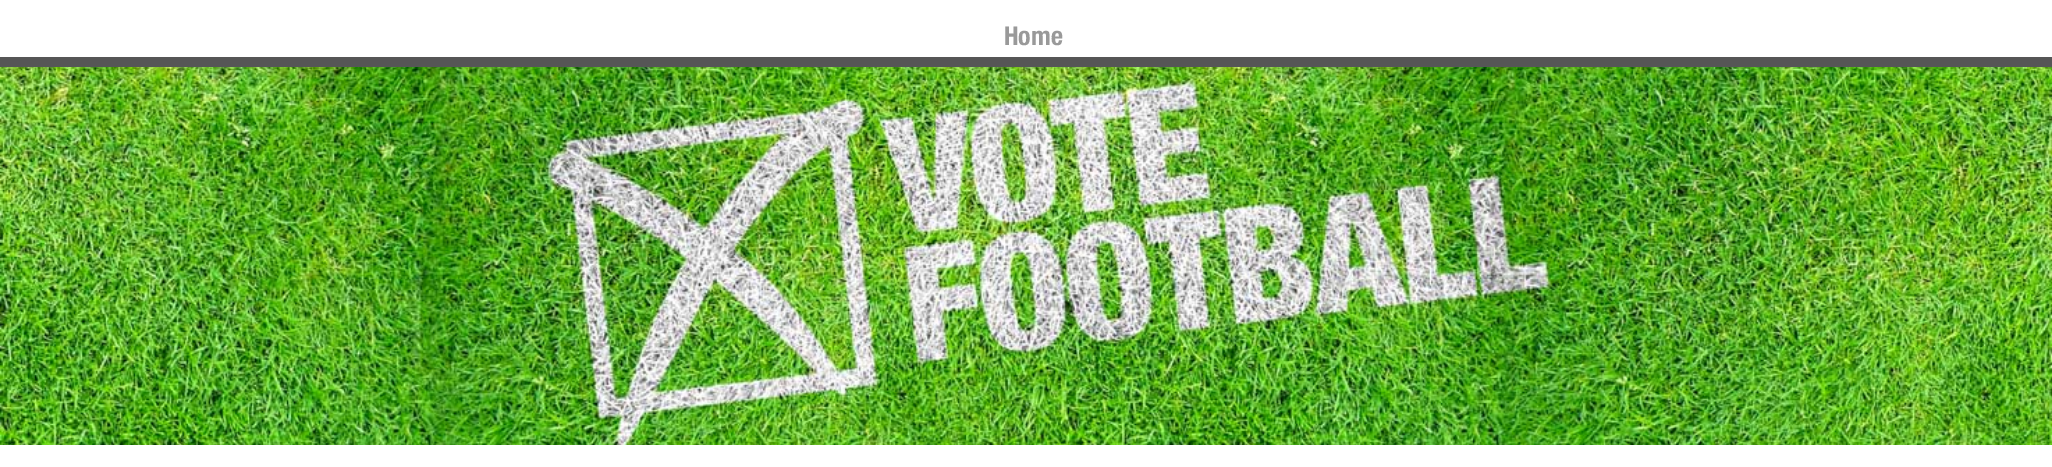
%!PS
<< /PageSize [2052 467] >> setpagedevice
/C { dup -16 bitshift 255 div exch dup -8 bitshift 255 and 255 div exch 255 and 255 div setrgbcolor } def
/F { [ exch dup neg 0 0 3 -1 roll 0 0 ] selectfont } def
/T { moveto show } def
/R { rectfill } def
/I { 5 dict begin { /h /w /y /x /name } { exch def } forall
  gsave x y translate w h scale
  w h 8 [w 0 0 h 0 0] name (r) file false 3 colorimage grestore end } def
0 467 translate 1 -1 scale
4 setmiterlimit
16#FFFFFF C
0 0 2052 467 R
/HelveticaNeue-Bold 26 F
16#999999 C
(Home) 1004 45 T
16#565656 C
0 57 2052 10 R
(1.rgb) 0 67 2052 378 I
showpage
